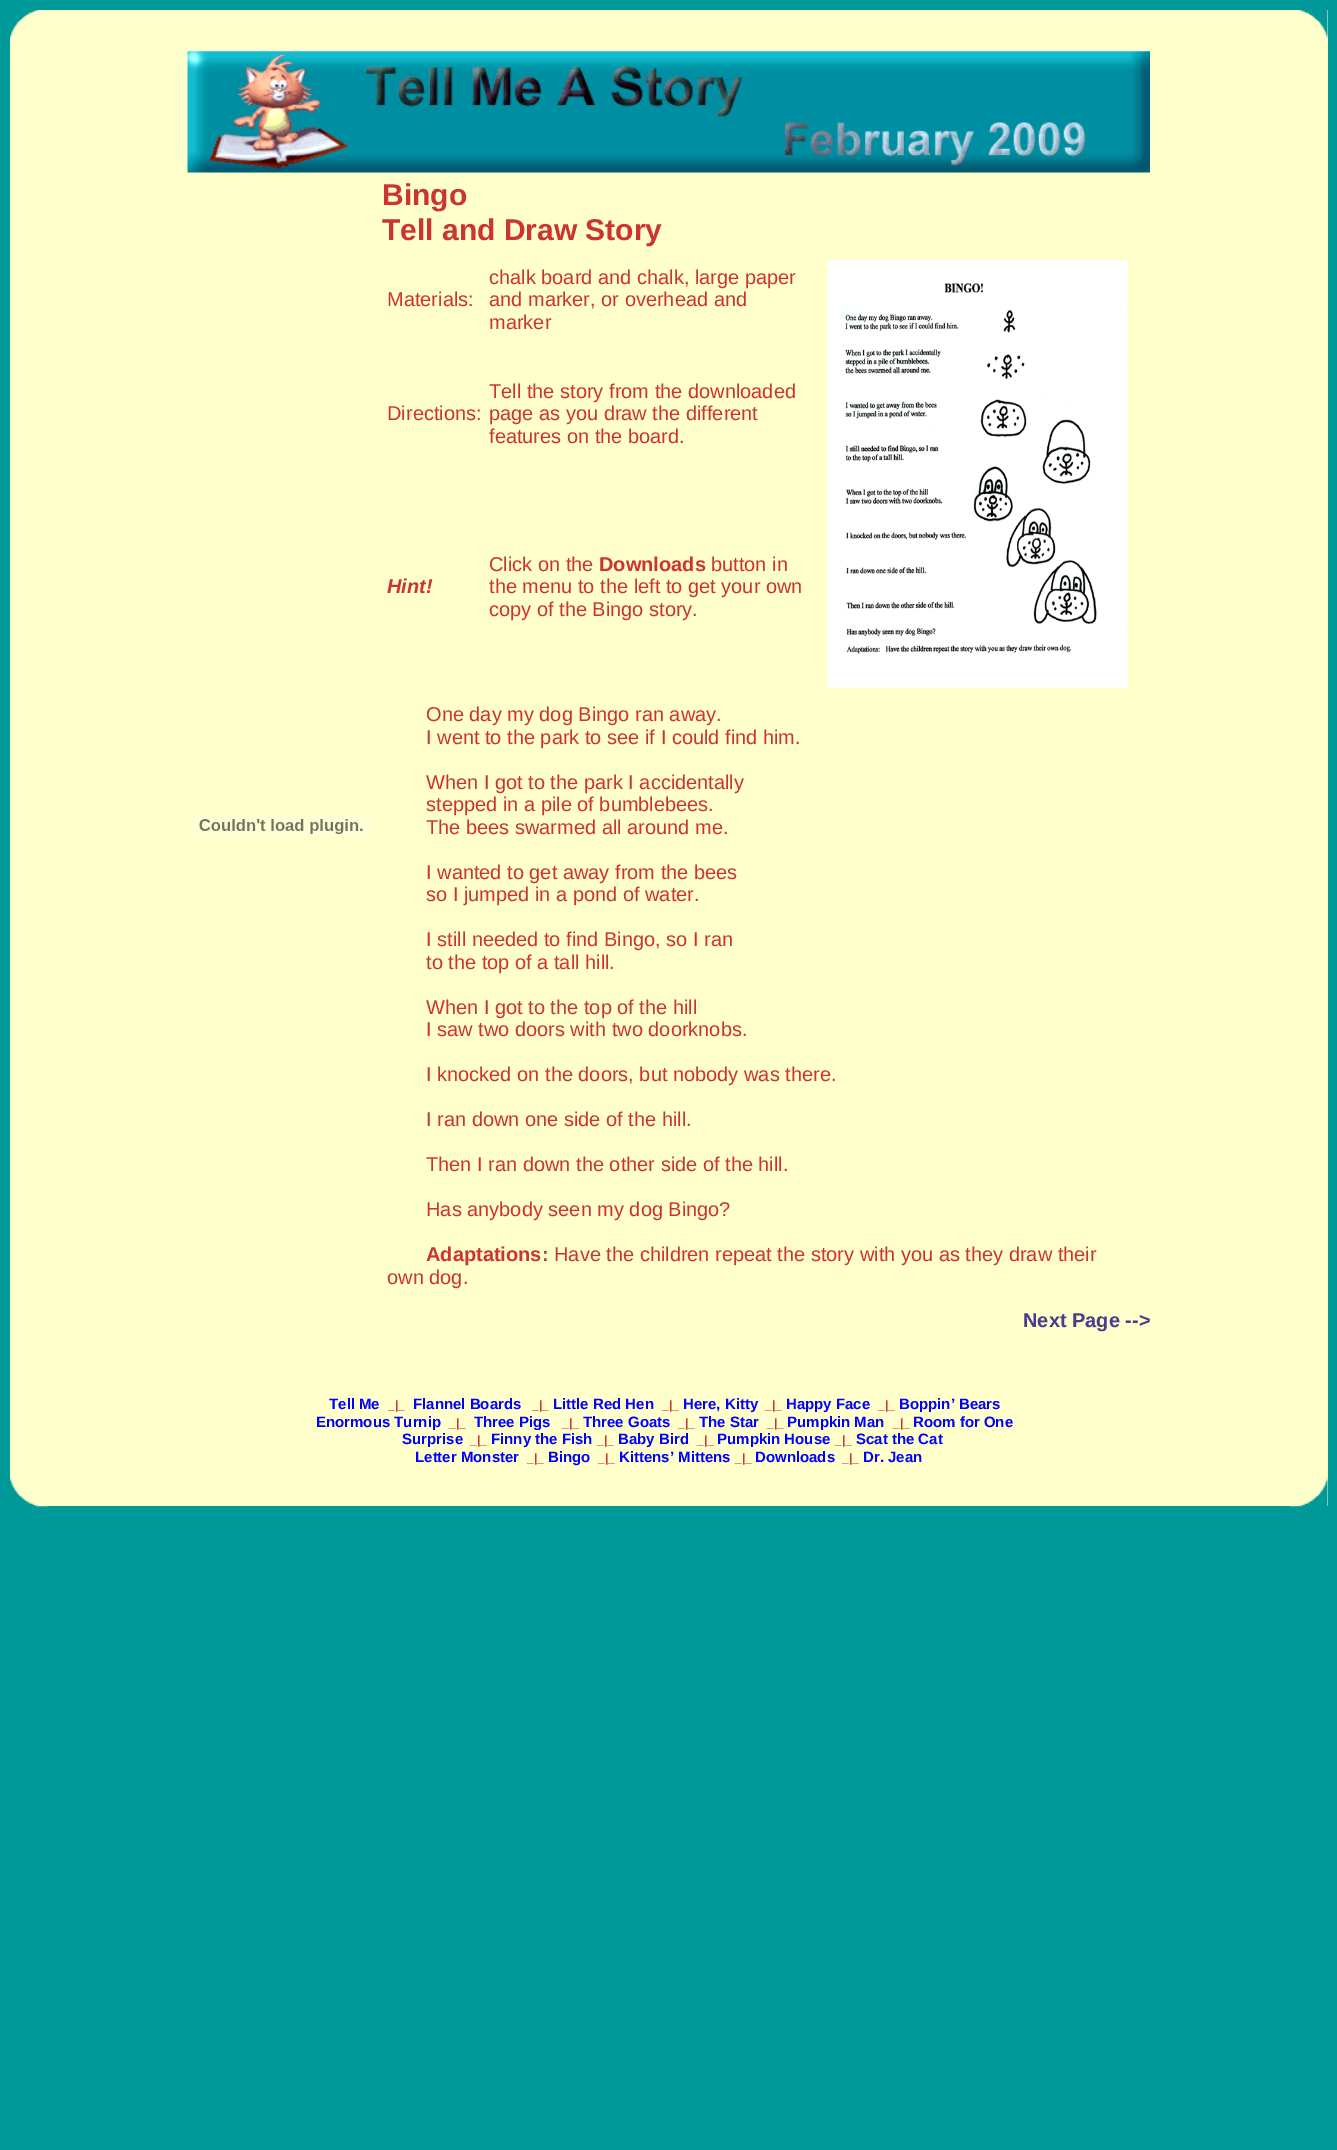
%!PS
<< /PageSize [1337 2150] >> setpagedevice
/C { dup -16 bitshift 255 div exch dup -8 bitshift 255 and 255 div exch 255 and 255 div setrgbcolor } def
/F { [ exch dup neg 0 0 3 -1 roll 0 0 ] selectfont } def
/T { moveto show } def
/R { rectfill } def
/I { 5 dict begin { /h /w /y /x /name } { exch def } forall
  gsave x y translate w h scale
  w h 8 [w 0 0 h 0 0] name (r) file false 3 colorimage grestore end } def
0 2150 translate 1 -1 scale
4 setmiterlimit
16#009999 C
0 0 1337 2150 R
16#FFFFCC C
10 10 1318 1496 R
(1.rgb) 1298 10 30 29 I
(2.rgb) 10 10 29 29 I
(3.rgb) 187 51 963 122 I
(4.rgb) 191 814 180 22 I
/LiberationSans-Bold 30 F
16#CC3333 C
(Bingo) 382 205 T
(Tell and Draw Story) 382 240 T
/LiberationSans-Regular 20 F
(Materials:) 387 306 T
(chalk board and chalk, large paper) 489 284 T
(and marker, or overhead and) 489 306 T
(marker) 489 329 T
(5.rgb) 827 260 301 428 I
(Directions:) 387 420 T
(Tell the story from the downloaded) 489 398 T
(page as you draw the different) 489 420 T
(features on the board.) 489 443 T
/LiberationSans-BoldItalic 20 F
(Hint!) 387 593 T
/LiberationSans-Regular 20 F
(Click on the) 489 571 T
/LiberationSans-Bold 20 F
(Downloads) 599 571 T
/LiberationSans-Regular 20 F
(button in) 711 571 T
(the menu to the left to get your own) 489 593 T
(copy of the Bingo story.) 489 616 T
(One day my dog Bingo ran away.) 426 721 T
(I went to the park to see if I could find him.) 426 744 T
(When I got to the park I accidentally) 426 789 T
(stepped in a pile of bumblebees.) 426 811 T
(The bees swarmed all around me.) 426 834 T
(I wanted to get away from the bees) 426 879 T
(so I jumped in a pond of water.) 426 901 T
(I still needed to find Bingo, so I ran) 426 946 T
(to the top of a tall hill.) 426 969 T
(When I got to the top of the hill) 426 1014 T
(I saw two doors with two doorknobs.) 426 1036 T
(I knocked on the doors, but nobody was there.) 426 1081 T
(I ran down one side of the hill.) 426 1126 T
(Then I ran down the other side of the hill.) 426 1171 T
(Has anybody seen my dog Bingo?) 426 1216 T
/LiberationSans-Bold 20 F
(Adaptations:) 426 1261 T
/LiberationSans-Regular 20 F
(Have the children repeat the story with you as they draw their) 554 1261 T
(own dog.) 387 1284 T
/LiberationSans-Bold 20 F
16#483D8B C
(Next Page -->) 1023 1327 T
/LiberationSans-Bold 15 F
16#0000FF C
(Tell Me) 329 1409 T
/LiberationSans-Bold 12 F
16#CC3333 C
(_|_) 388 1409 T
/LiberationSans-Bold 15 F
16#0000FF C
(Flannel Boards) 413 1409 T
/LiberationSans-Bold 12 F
16#CC3333 C
(_|_) 532 1409 T
/LiberationSans-Bold 15 F
16#0000FF C
(Little Red Hen) 553 1409 T
/LiberationSans-Bold 12 F
16#CC3333 C
(_|_) 662 1409 T
/LiberationSans-Bold 15 F
16#0000FF C
(Here, Kitty) 683 1409 T
/LiberationSans-Bold 12 F
16#CC3333 C
(_|_) 765 1409 T
/LiberationSans-Bold 15 F
16#0000FF C
(Happy Face) 786 1409 T
/LiberationSans-Bold 12 F
16#CC3333 C
(_|_) 878 1409 T
/LiberationSans-Bold 15 F
16#0000FF C
(Boppin’ Bears) 899 1409 T
(Enormous Turnip) 316 1427 T
/LiberationSans-Bold 12 F
16#CC3333 C
(_|_) 449 1427 T
/LiberationSans-Bold 15 F
16#0000FF C
(Three Pigs) 474 1427 T
/LiberationSans-Bold 12 F
16#CC3333 C
(_|_) 562 1427 T
/LiberationSans-Bold 15 F
16#0000FF C
(Three Goats) 583 1427 T
/LiberationSans-Bold 12 F
16#CC3333 C
(_|_) 678 1427 T
/LiberationSans-Bold 15 F
16#0000FF C
(The Star) 699 1427 T
/LiberationSans-Bold 12 F
16#CC3333 C
(_|_) 767 1427 T
/LiberationSans-Bold 15 F
16#0000FF C
(Pumpkin Man) 787 1427 T
/LiberationSans-Bold 12 F
16#CC3333 C
(_|_) 893 1427 T
/LiberationSans-Bold 15 F
16#0000FF C
(Room for One) 913 1427 T
(Surprise) 402 1444 T
16#FFFFCC C
433 1430 3 1 R
/LiberationSans-Bold 12 F
16#CC3333 C
(_|_) 470 1444 T
/LiberationSans-Bold 15 F
16#0000FF C
(Finny the Fish) 491 1444 T
16#FFFFCC C
536 1430 3 1 R
/LiberationSans-Bold 12 F
16#CC3333 C
(_|_) 597 1444 T
/LiberationSans-Bold 15 F
16#0000FF C
(Baby Bird) 618 1444 T
/LiberationSans-Bold 12 F
16#CC3333 C
(_|_) 697 1444 T
/LiberationSans-Bold 15 F
16#0000FF C
(Pumpkin House) 717 1444 T
16#FFFFCC C
821 1430 2 1 R
/LiberationSans-Bold 12 F
16#CC3333 C
(_|_) 835 1444 T
/LiberationSans-Bold 15 F
16#0000FF C
(Scat the Cat) 856 1444 T
(Letter Monster) 415 1462 T
/LiberationSans-Bold 12 F
16#CC3333 C
(_|_) 527 1462 T
/LiberationSans-Bold 15 F
16#0000FF C
(Bingo) 548 1462 T
/LiberationSans-Bold 12 F
16#CC3333 C
(_|_) 598 1462 T
/LiberationSans-Bold 15 F
16#0000FF C
(Kittens’ Mittens) 619 1462 T
/LiberationSans-Bold 12 F
16#CC3333 C
(_|_) 735 1462 T
/LiberationSans-Bold 15 F
16#0000FF C
(Downloads) 755 1462 T
/LiberationSans-Bold 12 F
16#CC3333 C
(_|_) 842 1462 T
/LiberationSans-Bold 15 F
16#0000FF C
(Dr. Jean) 863 1462 T
(6.rgb) 1290 1477 38 30 I
(7.rgb) 10 1477 38 30 I
showpage
